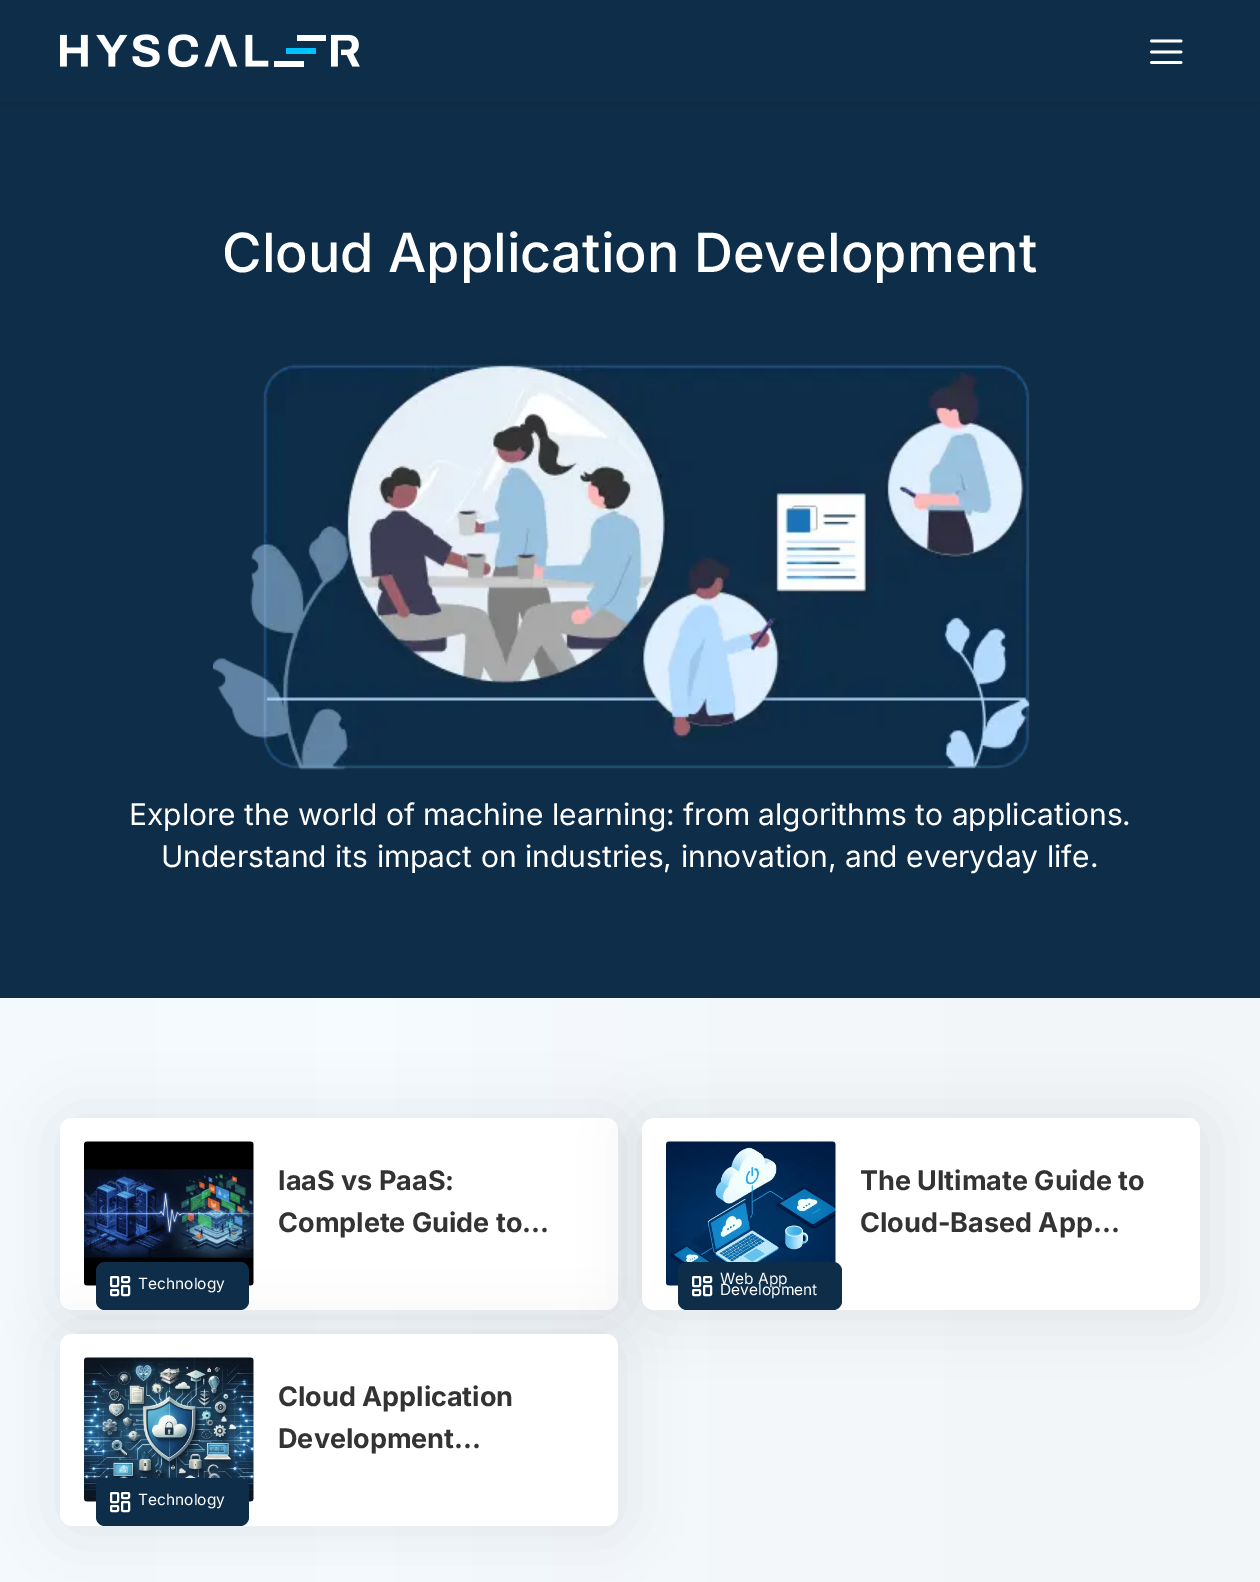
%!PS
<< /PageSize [1260 1582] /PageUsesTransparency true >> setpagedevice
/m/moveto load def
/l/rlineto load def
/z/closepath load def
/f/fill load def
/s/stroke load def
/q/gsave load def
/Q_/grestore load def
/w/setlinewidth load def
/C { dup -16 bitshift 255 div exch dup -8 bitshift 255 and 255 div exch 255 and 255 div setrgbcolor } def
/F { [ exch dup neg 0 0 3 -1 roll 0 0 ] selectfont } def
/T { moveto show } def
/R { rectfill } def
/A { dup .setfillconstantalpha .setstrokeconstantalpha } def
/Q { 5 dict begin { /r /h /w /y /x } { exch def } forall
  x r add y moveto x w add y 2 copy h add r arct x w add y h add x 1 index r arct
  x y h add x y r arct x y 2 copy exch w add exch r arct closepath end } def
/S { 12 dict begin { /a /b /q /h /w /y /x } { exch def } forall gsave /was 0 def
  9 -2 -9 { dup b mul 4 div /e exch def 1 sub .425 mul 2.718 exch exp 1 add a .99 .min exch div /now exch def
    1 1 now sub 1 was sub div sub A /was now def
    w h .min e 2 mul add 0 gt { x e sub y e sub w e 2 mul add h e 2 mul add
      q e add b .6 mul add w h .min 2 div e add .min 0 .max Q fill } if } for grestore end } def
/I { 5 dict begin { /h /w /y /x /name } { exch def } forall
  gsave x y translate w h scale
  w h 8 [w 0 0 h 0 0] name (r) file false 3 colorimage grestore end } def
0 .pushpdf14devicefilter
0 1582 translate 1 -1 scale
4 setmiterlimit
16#FFFFFF C
0 0 1260 1582 R
16#0E2D49 C
0 102 1260 896 R
16#000000 C
0 2 1260 102 0 2 .1 S
16#0E2D49 C
0 0 1260 102 R
(1.rgb) 60 34 300 34 I
16#FFFFFF C
2.7 w
1 setlinecap
1151.5 41 m 29.5 0 l 1151.5 52 m 29.5 0 l 1151.5 62.5 m 29.5 0 l s
/Inter-Medium 54 F
(Cloud Application Development) 222 272 T
(2.rgb) 213 359 817 411 I
/Inter-Regular 30 F
(Explore the world of machine learning: from algorithms to applications.) 129 825 T
(Understand its impact on industries, innovation, and everyday life.) 161 867 T
q 0 998 m 1260 0 l 0 584 l -1260 0 l z clip newpath
<< /ShadingType 2 /ColorSpace /DeviceRGB /Coords [1260 1552 0 1552] /Extend [true true] /Function << /FunctionType 3 /Domain [0 1] /Functions [<< /FunctionType 2 /Domain [0 1] /C0 [.953 .965 .973] /C1 [.953 .969 .98] /N 1 >> << /FunctionType 2 /Domain [0 1] /C0 [.953 .969 .98] /C1 [.965 .984 1] /N 1 >> << /FunctionType 2 /Domain [0 1] /C0 [.965 .984 1] /C1 [.953 .976 .992] /N 1 >>] /Bounds [.4 .69] /Encode [0 1 0 1 0 1] >> >> shfill Q_
16#000000 C
62 1121 558 192 12 30 .08 S
16#FFFFFF C
60 1118 558 192 12 Q f
/Inter-Bold 27 F
16#333333 C
(IaaS vs PaaS:) 278 1190 T
(Complete Guide to…) 278 1232 T
16#000000 C
644 1121 558 192 12 30 .08 S
16#FFFFFF C
642 1118 558 192 12 Q f
16#000000 C
62 1337 558 192 12 30 .08 S
(3.rgb) 84 1141 170 145 I
16#0E2D49 C
96 1262 153 48 9 Q f
16#FFFFFF C
2 w
0 setlinecap
111 1277 7 9 1 Q s
122 1277 7 5 1 Q s
122 1286 7 9 1 Q s
111 1290 7 5 1 Q s
/Inter-Regular 15.5 F
(Technology) 138 1289 T
/Inter-Bold 27 F
16#333333 C
(The Ultimate Guide to) 860 1190 T
(Cloud-Based App…) 860 1232 T
(4.rgb) 666 1141 170 145 I
16#0E2D49 C
678 1262 164 48 9 Q f
16#FFFFFF C
693 1277 7 9 1 Q s
704 1277 7 5 1 Q s
704 1286 7 9 1 Q s
693 1290 7 5 1 Q s
/Inter-Regular 15.5 F
(Web App) 720 1284 T
(Development) 720 1295 T
60 1334 558 192 12 Q f
/Inter-Bold 27 F
16#333333 C
(Cloud Application) 278 1406 T
(Development…) 278 1448 T
(5.rgb) 84 1357 170 145 I
16#0E2D49 C
96 1478 153 48 9 Q f
16#FFFFFF C
111 1493 7 9 1 Q s
122 1493 7 5 1 Q s
122 1502 7 9 1 Q s
111 1506 7 5 1 Q s
/Inter-Regular 15.5 F
(Technology) 138 1505 T
.poppdf14devicefilter showpage
